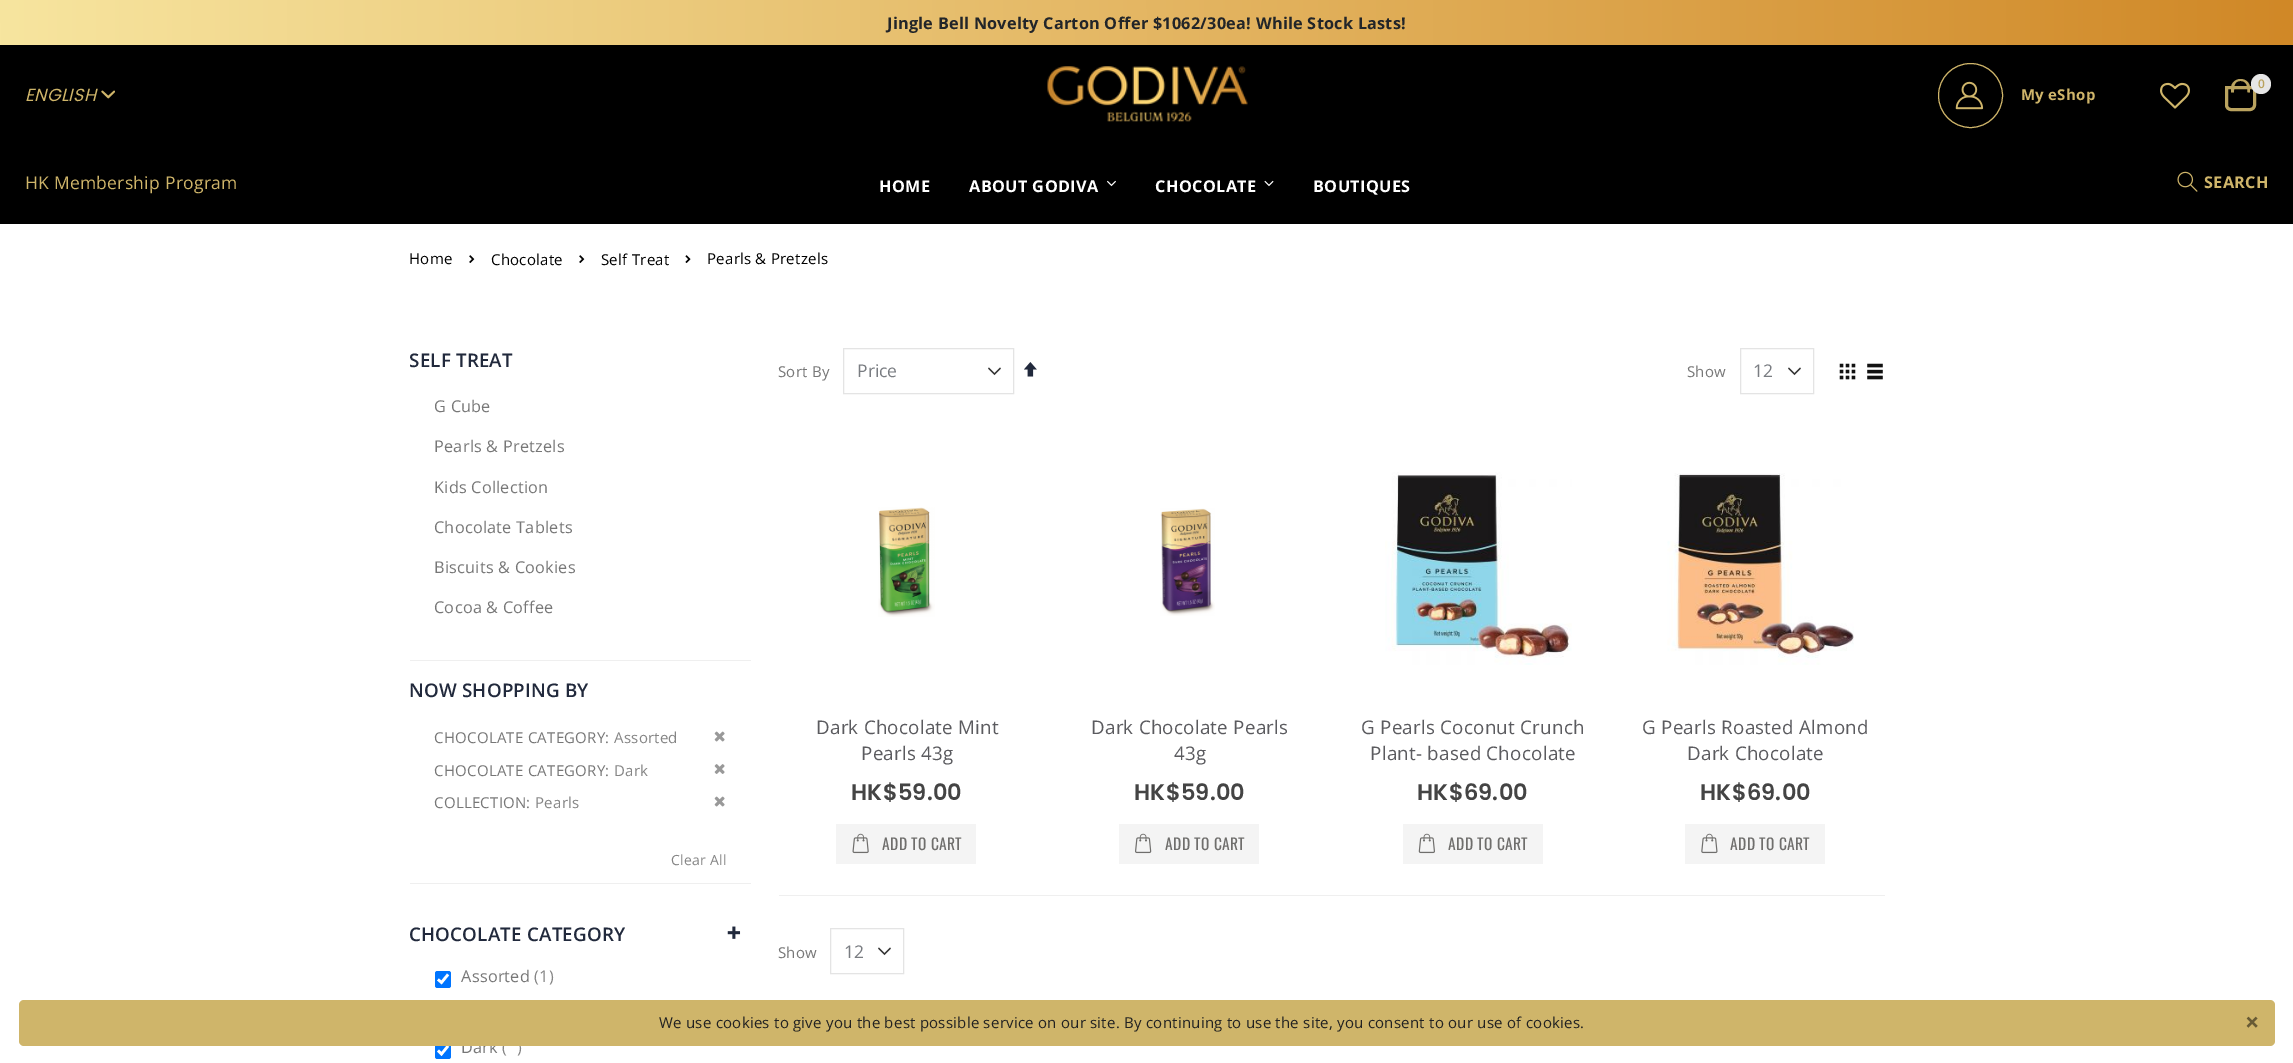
%!PS
<< /PageSize [2293 1063] >> setpagedevice
/m/moveto load def
/l/rlineto load def
/c/rcurveto load def
/z/closepath load def
/f/fill load def
/s/stroke load def
/q/gsave load def
/Q_/grestore load def
/w/setlinewidth load def
/C { dup -16 bitshift 255 div exch dup -8 bitshift 255 and 255 div exch 255 and 255 div setrgbcolor } def
/F { [ exch dup neg 0 0 3 -1 roll 0 0 ] selectfont } def
/T { moveto show } def
/R { rectfill } def
/O { newpath 0 360 arc closepath } def
/Q { 5 dict begin { /r /h /w /y /x } { exch def } forall
  x r add y moveto x w add y 2 copy h add r arct x w add y h add x 1 index r arct
  x y h add x y r arct x y 2 copy exch w add exch r arct closepath end } def
/I { 5 dict begin { /h /w /y /x /name } { exch def } forall
  gsave x y translate w h scale
  w h 8 [w 0 0 h 0 0] name (r) file false 3 colorimage grestore end } def
0 1063 translate 1 -1 scale
4 setmiterlimit
16#FFFFFF C
0 0 2293 1063 R
16#000000 C
0 45 2293 179 R
q 0 0 m 2293 0 l 0 45 l -2293 0 l z clip newpath
<< /ShadingType 2 /ColorSpace /DeviceRGB /Coords [0 23 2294 22] /Extend [true true] /Function << /FunctionType 2 /Domain [0 1] /C0 [.969 .898 .624] /C1 [.816 .533 .153] /N 1 >> >> shfill Q_
/OpenSans-Bold 16.25 F
16#222529 C
887 29 m .25 0 (Jingle Bell Novelty Carton Offer $1062/30ea! While Stock Lasts!) ashow
/Poppins-Italic 17.5 F
16#CFB56A C
25 101 m .25 0 (ENGLISH) ashow
(1.rgb) 101 90 14 9 I
/OpenSans-Regular 17.5 F
25 189 m .25 0 (HK Membership Program) ashow
(2.rgb) 1047 66 201 56 I
1970.5 95.5 32 O s
(3.rgb) 1955 81 29 29 I
/OpenSans-Bold 15 F
2021 100 m .25 0 (My eShop) ashow
(4.rgb) 2160 82 30 27 I
16#BAA35F C
3 w
2226.5 87.5 m 28 0 l 0 17.5 l 0 2.5 -2 4.5 -4.5 4.5 c -19 0 l -2.5 0 -4.5 -2 -4.5 -4.5 c z s
2240.5 79 m 5.5 0 9.5 4 9.5 9 c 0 4.5 l -19 0 l 0 -4.5 l 0 -5 4.5 -9 9.5 -9 c z 2240.5 81 m 7 0 7 6.5 7 11.5 c -13.5 0 l 0 -5 -.5 -11.5 6.5 -11.5 c z eofill
16#E6E6E6 C
2261 84 10 O f
/OpenSans-SemiBold 12 F
16#BAA35F C
2258 88 m .25 0 (0) ashow
(5.rgb) 2177 171 21 21 I
/OpenSans-Bold 16.25 F
16#CFB56A C
2204 188 m .25 0 (SEARCH) ashow
16#FFFFFF C
879 192 m .4 0 (HOME) ashow
969 192 m .4 0 (ABOUT GODIVA) ashow
(6.rgb) 1107 180 9 7 I
1155 192 m .4 0 (CHOCOLATE) ashow
(7.rgb) 1264 180 10 7 I
1313 192 m .4 0 (BOUTIQUES) ashow
/OpenSans-Regular 15 F
16#000000 C
409 264 m .25 0 (Home) ashow
(8.rgb) 469 255 6 8 I
491 265 m .25 0 (Chocolate) ashow
(8.rgb) 579 255 6 8 I
601 265 m .25 0 (Self Treat) ashow
(9.rgb) 685 255 6 8 I
707 264 m .25 0 (Pearls & Pretzels) ashow
/OpenSans-SemiBold 18.75 F
16#21293C C
409 367 m .2 0 (SELF TREAT) ashow
16#EFEFEF C
410 660 341 1 R
/OpenSans-Regular 16.25 F
16#777777 C
434 412 m .25 0 (G Cube) ashow
434 452 m .25 0 (Pearls & Pretzels) ashow
434 493 m .25 0 (Kids Collection) ashow
434 533 m .25 0 (Chocolate Tablets) ashow
434 573 m .25 0 (Biscuits & Cookies) ashow
434 613 m .25 0 (Cocoa & Coffee) ashow
/OpenSans-SemiBold 18.75 F
16#21293C C
409 697 m .2 0 (NOW SHOPPING BY) ashow
/OpenSans-Regular 15 F
16#777777 C
434 743 m .25 0 (CHOCOLATE CATEGORY:) ashow
16#858585 C
614 743 m .25 0 (Assorted) ashow
(10.rgb) 714 731 11 11 I
16#777777 C
434 776 m .25 0 (CHOCOLATE CATEGORY:) ashow
16#858585 C
614 776 m .25 0 (Dark) ashow
(11.rgb) 714 764 11 10 I
16#777777 C
434 808 m .25 0 (COLLECTION:) ashow
16#858585 C
535 808 m .25 0 (Pearls) ashow
(10.rgb) 714 796 11 11 I
16#EFEFEF C
410 883 341 1 R
/OpenSans-Regular 14 F
16#858585 C
671 865 m .25 0 (Clear All) ashow
/OpenSans-SemiBold 18.75 F
16#21293C C
409 941 m .2 0 (CHOCOLATE CATEGORY) ashow
(12.rgb) 727 926 14 13 I
16#0075FF C
435 971 16 17 2.5 Q f
16#FFFFFF C
2.6 w
438 979.5 m 3.5 3 l 6.5 -8 l s
/OpenSans-Regular 16.25 F
16#777777 C
461 982 m .25 0 (Assorted) ashow
16#858585 C
534 982 m .25 0 (\(1\)) ashow
16#0075FF C
435 1043 16 16 2.5 Q f
16#FFFFFF C
438 1050.5 m 3.5 3.5 l 6.5 -8 l s
16#777777 C
461 1053 m .25 0 (Dark) ashow
16#858585 C
502 1053 m .25 0 (\() ashow
517 1053 m .25 0 (\)) ashow
/OpenSans-Regular 15 F
16#777777 C
778 377 m .25 0 (Sort By) ashow
(13.rgb) 988 367 13 9 I
16#E4E4E4 C
1 w
843.5 348.5 170 45 rectstroke
/OpenSans-Regular 17.5 F
16#7A7D82 C
(Price) 857 377 T
(14.rgb) 1024 362 13 15 I
/OpenSans-Regular 15 F
16#777777 C
1687 377 m .25 0 (Show) ashow
(13.rgb) 1788 367 13 9 I
16#E4E4E4 C
1740.5 348.5 73 45 rectstroke
/OpenSans-Regular 17.5 F
16#7A7D82 C
(12) 1753 377 T
(15.rgb) 1839 363 17 17 I
(16.rgb) 1867 363 16 17 I
(17.rgb) 878 507 57 110 I
/OpenSans-Regular 18.75 F
16#5B5B5F C
816 734 m .25 0 (Dark Chocolate Mint) ashow
861 760 m .25 0 (Pearls 43g) ashow
/Poppins-SemiBold 22.5 F
16#444444 C
851 800 m .25 0 (HK$59.00) ashow
16#F4F4F4 C
836 824 140 40 R
(18.rgb) 852 833 17 21 I
/Oswald-Regular 15.5 F
16#6F6E6C C
882 850 m .4 0 (ADD TO CART) ashow
(19.rgb) 1160 508 55 108 I
/OpenSans-Regular 18.75 F
16#5B5B5F C
1091 734 m .25 0 (Dark Chocolate Pearls) ashow
1174 760 m .25 0 (43g) ashow
/Poppins-SemiBold 22.5 F
16#444444 C
1134 800 m .25 0 (HK$59.00) ashow
16#F4F4F4 C
1119 824 140 40 R
(20.rgb) 1135 833 17 21 I
/Oswald-Regular 15.5 F
16#6F6E6C C
1165 850 m .4 0 (ADD TO CART) ashow
(21.rgb) 1385 472 187 193 I
/OpenSans-Regular 18.75 F
16#5B5B5F C
1361 734 m .25 0 (G Pearls Coconut Crunch) ashow
1370 760 m .25 0 (Plant- based Chocolate) ashow
/Poppins-SemiBold 22.5 F
16#444444 C
1417 800 m .25 0 (HK$69.00) ashow
16#F4F4F4 C
1403 824 140 40 R
(22.rgb) 1418 833 17 21 I
/Oswald-Regular 15.5 F
16#6F6E6C C
1448 850 m .4 0 (ADD TO CART) ashow
(23.rgb) 1667 473 187 192 I
/OpenSans-Regular 18.75 F
16#5B5B5F C
1642 734 m .25 0 (G Pearls Roasted Almond) ashow
1687 760 m .25 0 (Dark Chocolate) ashow
/Poppins-SemiBold 22.5 F
16#444444 C
1700 800 m .25 0 (HK$69.00) ashow
16#F4F4F4 C
1685 824 140 40 R
(24.rgb) 1701 833 17 21 I
/Oswald-Regular 15.5 F
16#6F6E6C C
1730 850 m .4 0 (ADD TO CART) ashow
16#EFEFEF C
779 895 1106 1 R
/OpenSans-Regular 15 F
16#777777 C
778 958 m .25 0 (Show) ashow
(13.rgb) 878 947 13 9 I
16#E4E4E4 C
830.5 928.5 73 45 rectstroke
/OpenSans-Regular 17.5 F
16#7A7D82 C
(12) 844 958 T
16#CFB56A C
19 1000 2256 46 5 Q f
/OpenSans-Regular 15 F
16#222222 C
659 1028 m .25 0 (We use cookies to give you the best possible service on our site. By continuing to use the site, you consent to our use of cookies.) ashow
/OpenSans-Bold 25 F
16#685B35 C
(×) 2245 1031 T
showpage
